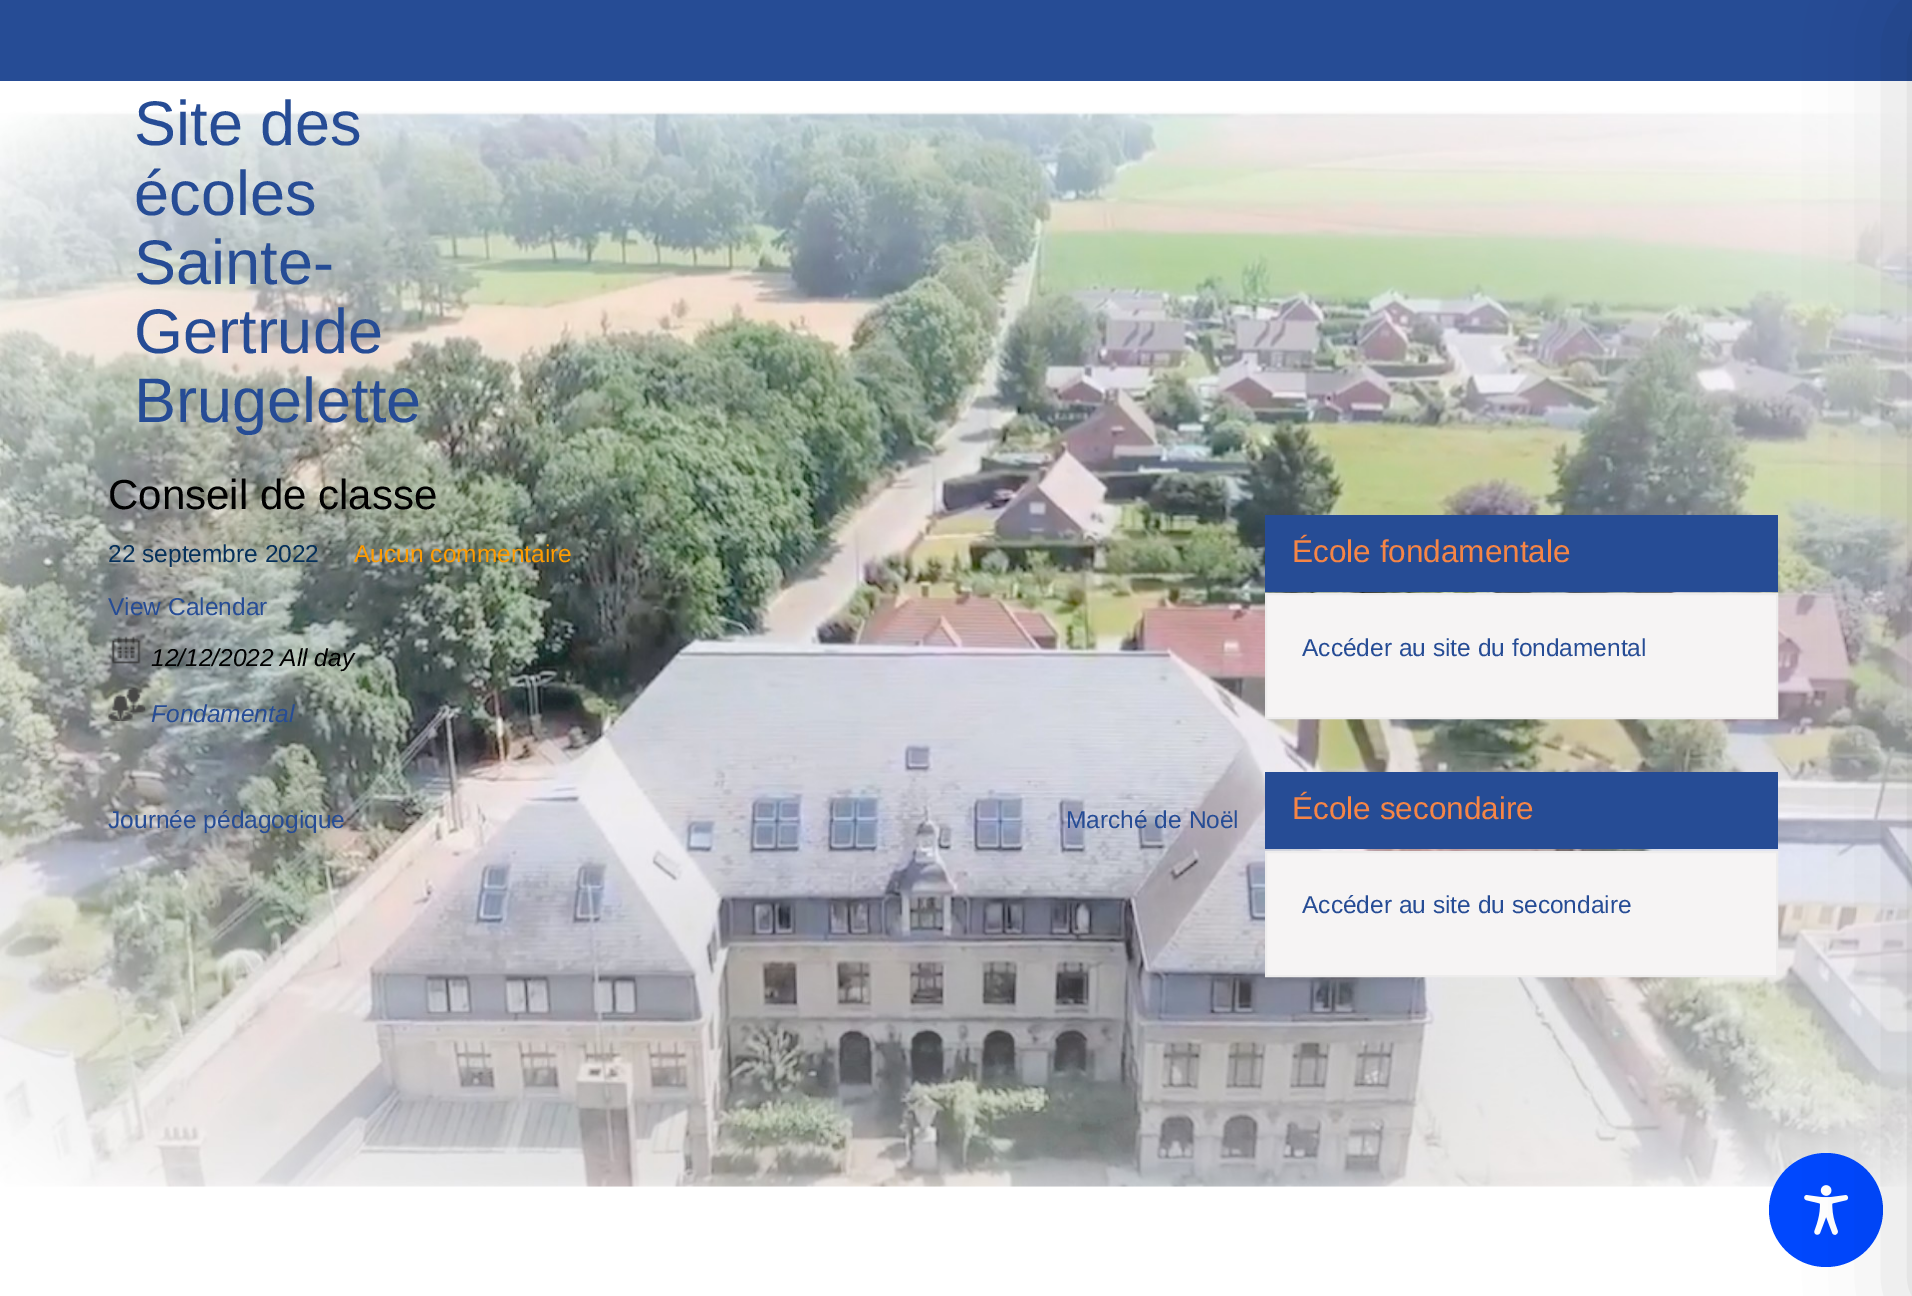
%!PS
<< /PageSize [1912 1296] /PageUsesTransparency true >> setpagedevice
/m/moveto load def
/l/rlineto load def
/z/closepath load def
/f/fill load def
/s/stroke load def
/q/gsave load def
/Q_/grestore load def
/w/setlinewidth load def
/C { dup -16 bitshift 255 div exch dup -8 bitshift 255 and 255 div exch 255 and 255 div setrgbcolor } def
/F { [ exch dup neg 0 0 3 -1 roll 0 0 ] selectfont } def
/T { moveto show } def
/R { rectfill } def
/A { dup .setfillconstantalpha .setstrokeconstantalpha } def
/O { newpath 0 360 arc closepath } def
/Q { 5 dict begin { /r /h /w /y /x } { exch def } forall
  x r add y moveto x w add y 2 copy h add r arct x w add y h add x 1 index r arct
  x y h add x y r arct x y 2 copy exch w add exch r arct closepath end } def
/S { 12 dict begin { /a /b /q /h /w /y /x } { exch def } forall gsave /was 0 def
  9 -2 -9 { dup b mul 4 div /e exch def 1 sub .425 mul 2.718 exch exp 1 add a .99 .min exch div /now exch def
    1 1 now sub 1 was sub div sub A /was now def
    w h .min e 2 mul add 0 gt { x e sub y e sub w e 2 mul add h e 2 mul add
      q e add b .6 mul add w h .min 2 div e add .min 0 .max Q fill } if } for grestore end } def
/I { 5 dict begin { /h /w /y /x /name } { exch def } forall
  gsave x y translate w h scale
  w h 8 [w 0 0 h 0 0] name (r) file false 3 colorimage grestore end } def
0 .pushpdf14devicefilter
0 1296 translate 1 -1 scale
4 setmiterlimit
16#FFFFFF C
0 0 1912 1296 R
(1.rgb) 0 110 1912 1077 I
16#264C95 C
0 0 1912 81 R
/LiberationSans-Regular 63 F
(Site des) 134 145 T
(écoles) 134 215 T
(Sainte-) 134 284 T
(Gertrude) 134 353 T
(Brugelette) 134 422 T
1265 515 513 77 R
16#F6F4F4 C
1266 594 m 511 0 l 0 124 l -511 0 l z q f Q_
16#EDECEC C
2 w
s
16#264C95 C
1265 772 513 77 R
16#F6F4F4 C
1266 852 m 511 0 l 0 124 l -511 0 l z q f Q_
16#EDECEC C
s
16#0048FE C
1826 1210 57 O f
(4.rgb) 1804 1185 45 50 I
16#000000 C
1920 18 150 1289 0 52.5 .2 S
/LiberationSans-Regular 42 F
(Conseil de classe) 108 509 T
/LiberationSans-Regular 24.5 F
16#05305A C
(22 septembre 2022) 108 562 T
16#FF9C00 C
(Aucun commentaire) 354 562 T
16#264C95 C
(View Calendar) 108 615 T
(2.rgb) 111 636 30 28 I
/LiberationSans-Italic 24.5 F
16#000000 C
(12/12/2022 All day) 151 666 T
(3.rgb) 108 687 38 34 I
16#264C95 C
(Fondamental) 151 722 T
/LiberationSans-Regular 24.5 F
(Journée pédagogique) 108 828 T
(Marché de Noël) 1066 828 T
/LiberationSans-Regular 31.5 F
16#F58546 C
(École fondamentale) 1292 562 T
/LiberationSans-Regular 24.5 F
16#264C95 C
(Accéder au site du fondamental) 1302 656 T
/LiberationSans-Regular 31.5 F
16#F58546 C
(École secondaire) 1292 819 T
/LiberationSans-Regular 24.5 F
16#264C95 C
(Accéder au site du secondaire) 1302 913 T
.poppdf14devicefilter showpage
